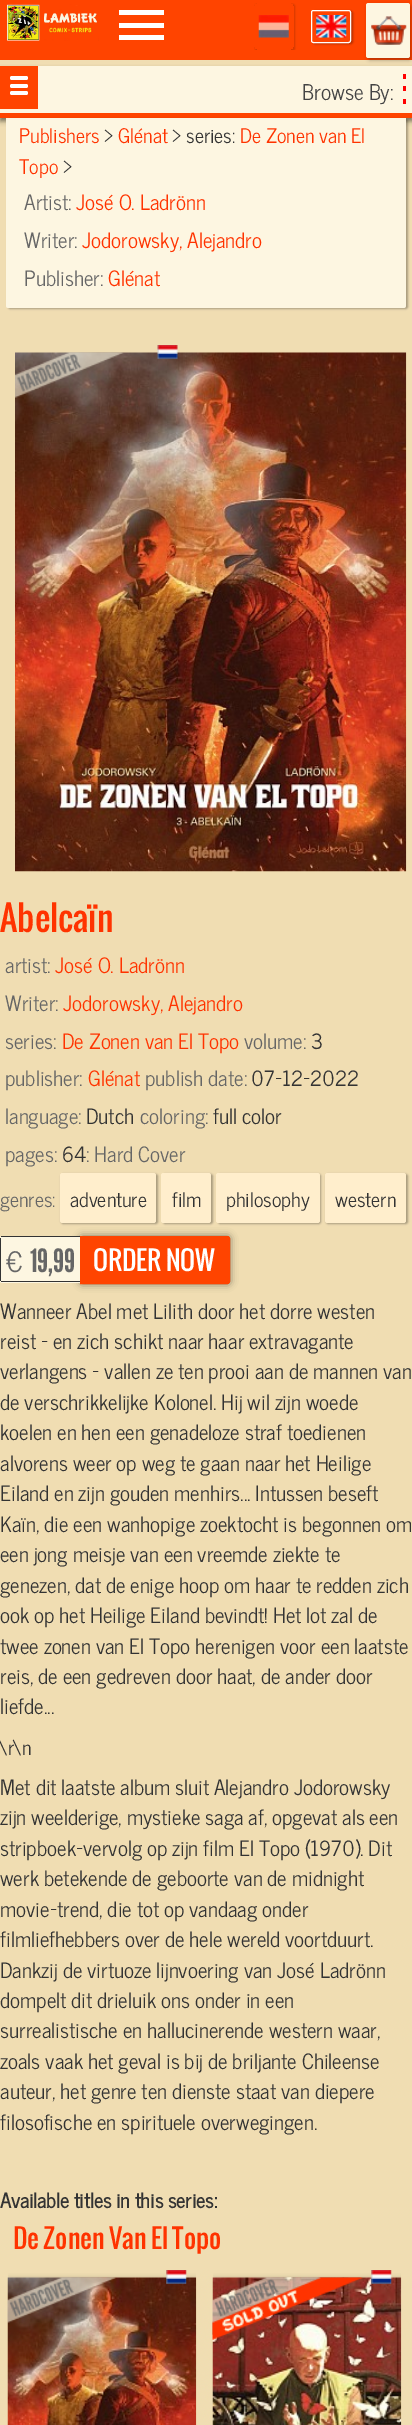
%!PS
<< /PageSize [412 2425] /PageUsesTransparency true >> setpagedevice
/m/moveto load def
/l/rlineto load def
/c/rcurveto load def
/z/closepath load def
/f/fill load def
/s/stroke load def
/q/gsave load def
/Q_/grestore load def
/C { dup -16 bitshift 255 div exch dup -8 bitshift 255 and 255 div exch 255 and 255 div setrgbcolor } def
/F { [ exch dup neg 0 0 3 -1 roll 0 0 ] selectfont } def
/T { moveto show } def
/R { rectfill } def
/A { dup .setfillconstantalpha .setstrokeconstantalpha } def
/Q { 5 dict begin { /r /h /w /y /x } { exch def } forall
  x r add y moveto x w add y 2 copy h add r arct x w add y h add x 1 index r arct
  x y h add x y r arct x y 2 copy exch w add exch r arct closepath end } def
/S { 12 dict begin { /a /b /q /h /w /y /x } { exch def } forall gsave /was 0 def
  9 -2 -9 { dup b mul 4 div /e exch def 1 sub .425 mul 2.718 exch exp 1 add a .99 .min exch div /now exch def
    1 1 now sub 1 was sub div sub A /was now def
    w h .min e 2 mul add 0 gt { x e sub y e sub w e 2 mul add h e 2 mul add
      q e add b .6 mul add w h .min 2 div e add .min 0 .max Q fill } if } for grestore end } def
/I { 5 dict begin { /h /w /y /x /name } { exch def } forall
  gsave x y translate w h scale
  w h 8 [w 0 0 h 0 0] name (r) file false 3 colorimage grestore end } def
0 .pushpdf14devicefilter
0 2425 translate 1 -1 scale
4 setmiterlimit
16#F0DDB2 C
0 0 412 2425 R
16#FF4400 C
0 0 412 60 R
(1.rgb) 7 4 92 37 I
16#FFFFFF C
119 35 45 5 R
119 23 45 5 R
119 10 45 5 R
q
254 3 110 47 rectclip
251 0 m 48 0 l 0 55 l -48 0 l z 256.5 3 m 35 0 l 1.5 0 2.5 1 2.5 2.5 c 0 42 l 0 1.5 -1 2.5 -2.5 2.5 c -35 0 l -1.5 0 -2.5 -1 -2.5 -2.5 c 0 -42 l 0 -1.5 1 -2.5 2.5 -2.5 c z eoclip newpath
16#661B00 C
255 4 40 47 2.5 1 .3 S
Q_
(2.rgb) 258 15 31 23 I
q
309 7 m 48 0 l 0 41 l -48 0 l z 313.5 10 m 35 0 l 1.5 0 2.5 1 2.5 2.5 c 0 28 l 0 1.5 -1 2.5 -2.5 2.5 c -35 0 l -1.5 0 -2.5 -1 -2.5 -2.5 c 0 -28 l 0 -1.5 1 -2.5 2.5 -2.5 c z eoclip newpath
16#000000 C
313 11 40 33 2.5 1 .3 S
Q_
(3.rgb) 316 15 31 23 I
311.5 10.5 39 32 2 Q s
16#000000 C
0 70 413 51 0 2.5 .5 S
16#FDF6E1 C
0 66 412 47 R
16#000000 C
368 5 43 55 2.5 2 .3 S
16#FDF6E1 C
366 3 44 55 2.5 Q f
(4.rgb) 371 16 36 29 I
16#FF4400 C
0 113 412 5 R
0 66 38 43 R
16#FFFFFF C
10 76 18 4 2 Q f
10 84 18 4 2 Q f
10 91 18 4 2 Q f
/NewsCycle-Medium 21.5 F
16#444444 C
(Browse By:) 302 100 T
16#FF0000 C
403 99 3 5 R
403 86 3 5 R
403 74 3 5 R
16#000000 C
8 119 400 190 2.5 1 .3 S
16#FDF6E1 C
6 118 m 400 0 l 0 187.5 l 0 1.5 -1 2.5 -2.5 2.5 c -395 0 l -1.5 0 -2.5 -1 -2.5 -2.5 c z f
/NewsCycle-Medium 20 F
16#FF3300 C
(Publishers) 19 143 T
16#333333 C
(>) 104 143 T
16#FF3300 C
(Glénat) 118 143 T
16#333333 C
(> series:) 172 143 T
16#FF3300 C
(De Zonen van El) 240 143 T
(Topo) 19 174 T
16#333333 C
(>) 63 174 T
/NewsCycle-Medium 21 F
16#666666 C
(Artist:) 24 210 T
16#FF3300 C
(José O. Ladrönn) 76 210 T
16#666666 C
(Writer:) 24 248 T
16#FF3300 C
(Jodorowsky, Alejandro) 82 248 T
16#666666 C
(Publisher:) 24 286 T
16#FF3300 C
(Glénat) 108 286 T
(6.rgb) 15 352 392 520 I
(5.rgb) 157 345 21 14 I
(7.rgb) 15 352 109 46 I
/Oswald-Regular 34 F
(Abelcaïn) 0 932 T
/NewsCycle-Medium 21 F
16#666666 C
(artist:) 5 973 T
16#FF3300 C
(José O. Ladrönn) 55 973 T
16#666666 C
(Writer:) 5 1011 T
16#FF3300 C
(Jodorowsky, Alejandro) 63 1011 T
16#666666 C
(series:) 5 1049 T
16#FF3300 C
(De Zonen van El Topo) 62 1049 T
16#666666 C
(volume:) 244 1049 T
16#333333 C
(3) 311 1049 T
16#666666 C
(publisher:) 5 1086 T
16#FF3300 C
(Glénat) 88 1086 T
16#666666 C
(publish date:) 145 1086 T
16#333333 C
(07-12-2022) 251 1086 T
16#666666 C
(language:) 5 1124 T
16#333333 C
(Dutch) 86 1124 T
16#666666 C
(coloring:) 140 1124 T
16#333333 C
(full color) 213 1124 T
16#666666 C
(pages:) 5 1162 T
16#333333 C
(64) 62 1162 T
16#666666 C
(: Hard Cover) 86 1162 T
/NewsCycle-Medium 20 F
(genres:) 0 1207 T
16#000000 C
61 1174 97 50 2.5 1 .3 S
16#FFEECC C
60 1173 96 50 2.5 Q f
16#333333 C
(adventure) 70 1207 T
16#000000 C
163 1174 50 50 2.5 1 .3 S
16#FFEECC C
161 1173 50 50 2.5 Q f
16#333333 C
(film) 172 1207 T
16#000000 C
218 1174 103 50 2.5 1 .3 S
16#FFEECC C
216 1173 104 50 2.5 Q f
16#333333 C
(philosophy) 226 1207 T
16#000000 C
326 1174 82 50 2.5 1 .3 S
16#FFEECC C
325 1173 81 50 2.5 Q f
16#333333 C
(western) 335 1207 T
16#0A0A0A C
80 1236 150 48 2.5 4 .5 S
16#FDF6E1 C
2.5 1236 m 77.5 0 l 0 47 l -77.5 0 l -1.5 0 -2.5 -1 -2.5 -2.5 c 0 -42 l 0 -1.5 1 -2.5 2.5 -2.5 c z f
16#333333 C
1 1236 79 1 R
1 1281 79 1 R
0 1238 1 43 R
/NewsCycle-Medium 28 F
16#666666 C
(€) 6 1272 T
/LeagueGothic-Regular 32 F
(19,99) 30 1272 T
16#FF4400 C
80.5 1236.5 m 147 0 l 1 0 2 1 2 2 c 0 43 l 0 1 -1 2 -2 2 c -147 0 l z q f Q_
s
/Oswald-Regular 26 F
16#FFFFFF C
(ORDER NOW) 93 1271 T
/NewsCycle-Medium 21 F
16#333333 C
(Wanneer Abel met Lilith door het dorre westen) 0 1319 T
(reist — en zich schikt naar haar extravagante) 0 1349 T
(verlangens — vallen ze ten prooi aan de mannen van) 0 1379 T
(de verschrikkelijke Kolonel. Hij wil zijn woede) 0 1410 T
(koelen en hen een genadeloze straf toedienen) 0 1440 T
(alvorens weer op weg te gaan naar het Heilige) 0 1471 T
(Eiland en zijn gouden menhirs... Intussen beseft) 0 1501 T
(Kaïn, die een wanhopige zoektocht is begonnen om) 0 1532 T
(een jong meisje van een vreemde ziekte te) 0 1562 T
(genezen, dat de enige hoop om haar te redden zich) 0 1593 T
(ook op het Heilige Eiland bevindt! Het lot zal de) 0 1623 T
(twee zonen van El Topo herenigen voor een laatste) 0 1654 T
(reis, de een gedreven door haat, de ander door) 0 1684 T
(liefde...) 0 1714 T
/NewsCycle-Medium 20 F
(\\r\\n) 0 1755 T
/NewsCycle-Medium 21 F
(Met dit laatste album sluit Alejandro Jodorowsky) 0 1795 T
(zijn weelderige, mystieke saga af, opgevat als een) 0 1825 T
(stripboek-vervolg op zijn film El Topo \(1970\). Dit) 0 1856 T
(werk betekende de geboorte van de midnight) 0 1886 T
(movie-trend, die tot op vandaag onder) 0 1917 T
(filmliefhebbers over de hele wereld voortduurt.) 0 1947 T
(Dankzij de virtuoze lijnvoering van José Ladrönn) 0 1978 T
(dompelt dit drieluik ons onder in een) 0 2008 T
(surrealistische en hallucinerende western waar,) 0 2038 T
(zoals vaak het geval is bij de briljante Chileense) 0 2069 T
(auteur, het genre ten dienste staat van diepere) 0 2099 T
(filosofische en spirituele overwegingen.) 0 2130 T
/NewsCycle-Bold 20 F
(Available titles in this series:) 0 2208 T
/Oswald-Regular 26 F
16#FF3300 C
(De Zonen Van El Topo) 13 2249 T
q
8 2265 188 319 rectclip
16#000000 C
9 2280 189 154 0 3 .5 S
Q_
(8.rgb) 7 2277 190 148 I
(9.rgb) 7 2277 109 46 I
(10.rgb) 166 2270 21 14 I
q
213 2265 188 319 rectclip
16#000000 C
214 2280 189 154 0 3 .5 S
Q_
(11.rgb) 212 2277 190 148 I
(12.rgb) 212 2277 151 63 I
(13.rgb) 371 2270 21 14 I
(14.rgb) 212 2277 109 46 I
.poppdf14devicefilter showpage
